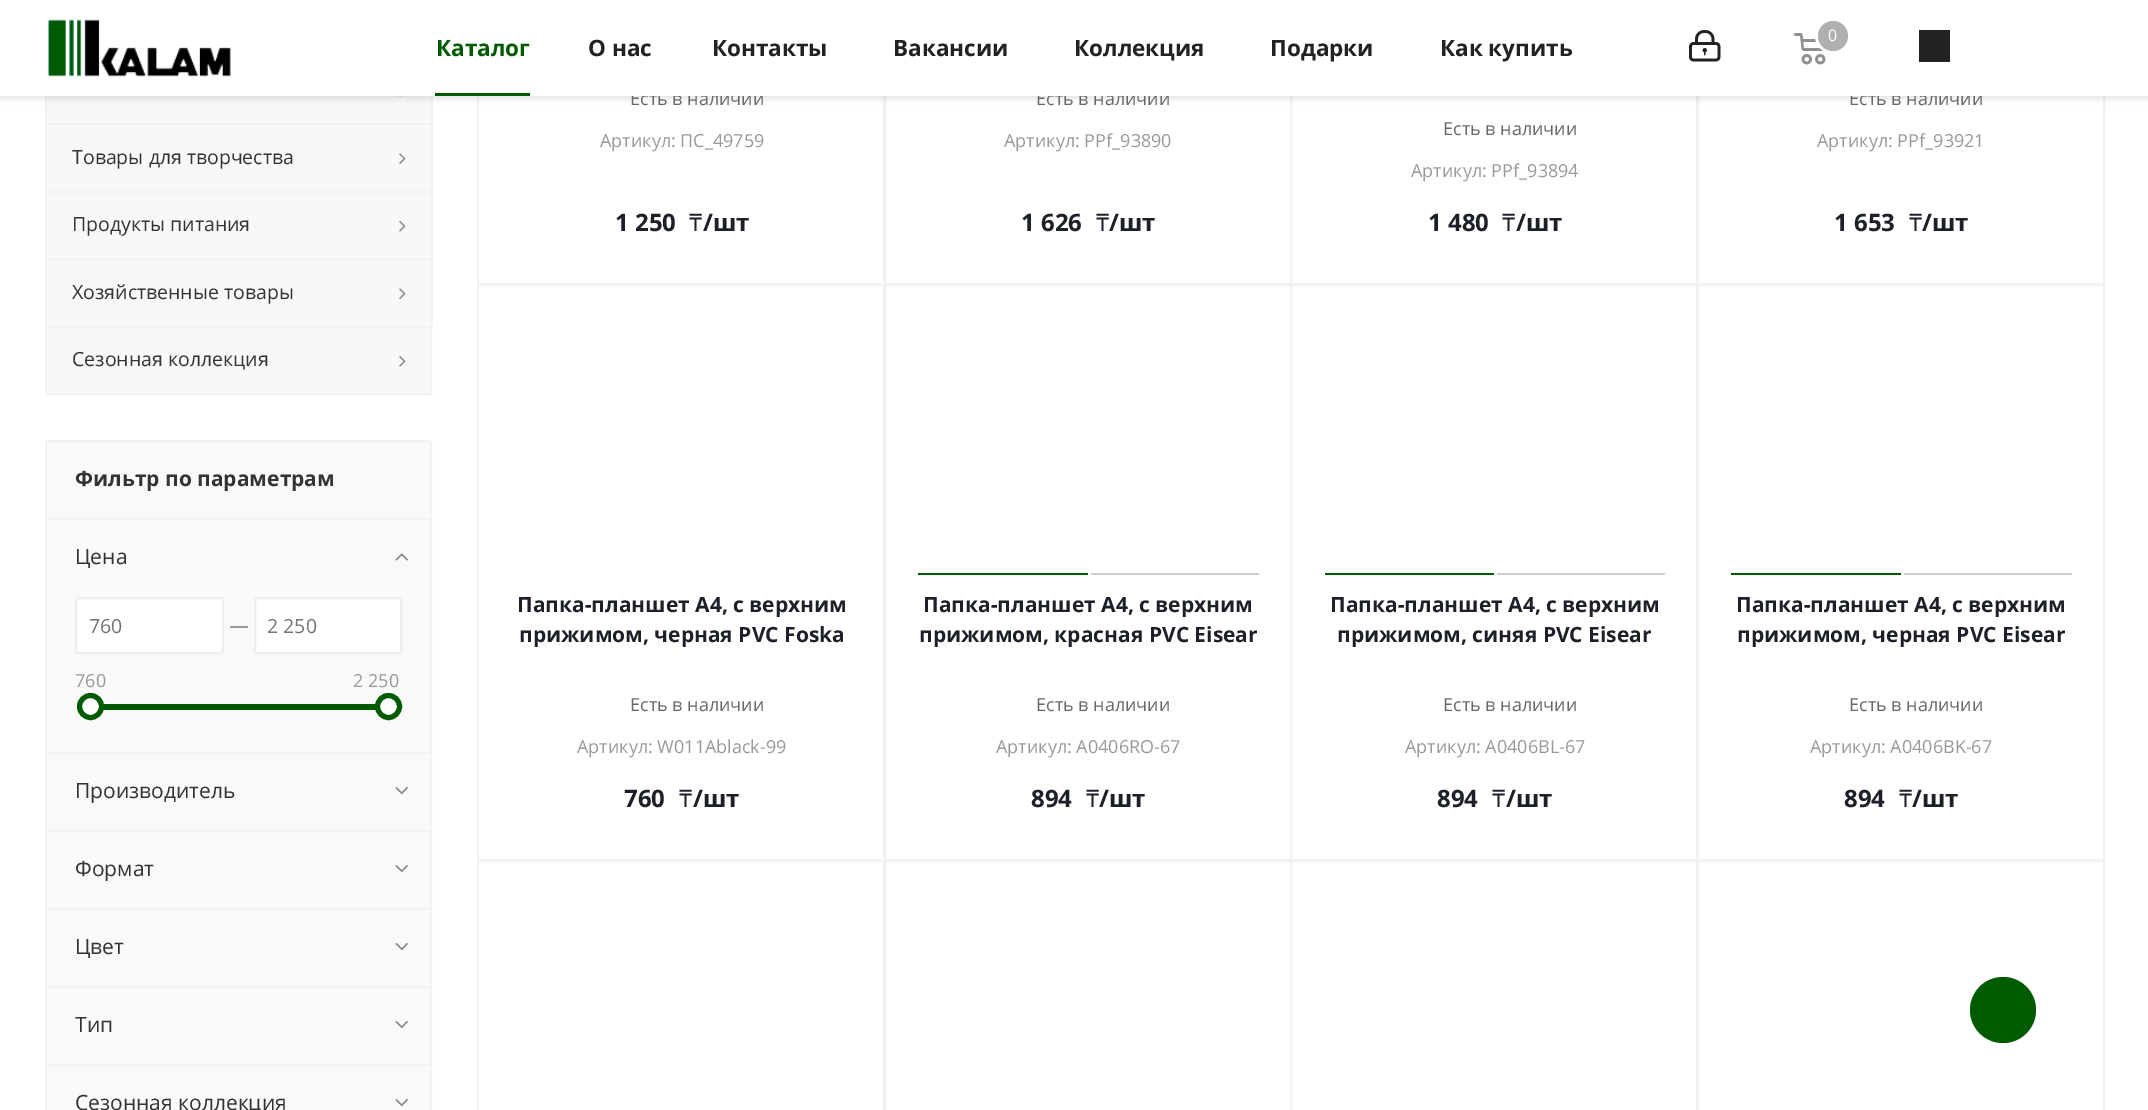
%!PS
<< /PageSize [2148 1110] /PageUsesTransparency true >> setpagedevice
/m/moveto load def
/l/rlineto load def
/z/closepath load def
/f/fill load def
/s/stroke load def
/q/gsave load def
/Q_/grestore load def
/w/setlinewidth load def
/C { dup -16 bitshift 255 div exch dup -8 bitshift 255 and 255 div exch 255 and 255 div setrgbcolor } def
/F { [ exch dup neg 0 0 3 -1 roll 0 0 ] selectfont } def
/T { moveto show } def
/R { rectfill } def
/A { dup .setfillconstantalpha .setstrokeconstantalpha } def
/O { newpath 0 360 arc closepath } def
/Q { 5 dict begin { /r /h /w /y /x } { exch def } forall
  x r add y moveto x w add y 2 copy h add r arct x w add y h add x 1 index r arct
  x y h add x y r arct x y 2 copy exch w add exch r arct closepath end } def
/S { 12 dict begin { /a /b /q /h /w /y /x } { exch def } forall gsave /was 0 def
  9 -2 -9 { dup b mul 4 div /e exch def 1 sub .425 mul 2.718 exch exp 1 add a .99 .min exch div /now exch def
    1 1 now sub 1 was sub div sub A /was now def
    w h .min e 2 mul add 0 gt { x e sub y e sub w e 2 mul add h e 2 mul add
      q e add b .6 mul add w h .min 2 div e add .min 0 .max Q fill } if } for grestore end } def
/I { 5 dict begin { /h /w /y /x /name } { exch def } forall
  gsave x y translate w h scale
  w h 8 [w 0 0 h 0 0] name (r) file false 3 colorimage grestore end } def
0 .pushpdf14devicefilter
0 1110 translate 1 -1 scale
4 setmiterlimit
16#FFFFFF C
0 0 2148 1110 R
16#F8F8F9 C
47 96 384 27 R
16#F2F2F2 C
431 96 2 27 R
45 96 2 27 R
(4.rgb) 399 96 2 1 I
2 w
478 -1 406 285 rectstroke
885 -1 406 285 rectstroke
1291 -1 406 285 rectstroke
1698 -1 406 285 rectstroke
16#000000 C
0 2 2148 96 0 4 .14 S
/OpenSans-Regular 18 F
16#666666 C
(Есть в наличии) 630 105 T
(Есть в наличии) 1036 105 T
(Есть в наличии) 1849 105 T
16#FFFFFF C
0 0 2148 96 R
(1.rgb) 48 19 183 58 I
/OpenSans-Bold 22.5 F
16#005A00 C
(Каталог) 436 56 T
435 93 95 3 R
16#222222 C
(О нас) 588 56 T
(Контакты) 712 56 T
(Вакансии) 893 56 T
(Коллекция) 1074 56 T
(Подарки) 1270 56 T
(Как купить) 1440 56 T
(2.rgb) 1689 30 32 32 I
(3.rgb) 1794 33 32 32 I
16#FFFFFF C
3 w
1833 36 16.5 O s
16#B0B0B0 C
1833 36 15 O f
/OpenSans-Regular 16 F
16#FFFFFF C
(0) 1828 41 T
16#222222 C
1919 30 31 32 R
16#F8F8F9 C
47 125 384 66 R
16#F2F2F2 C
45 123 387 2 R
431 123 2 68 R
45 123 2 68 R
/OpenSans-Regular 19.5 F
16#333333 C
(Товары для творчества) 72 164 T
(5.rgb) 399 153 7 11 I
16#F8F8F9 C
47 193 384 65 R
16#F2F2F2 C
45 191 387 2 R
431 191 2 67 R
45 191 2 67 R
16#333333 C
(Продукты питания) 72 231 T
(6.rgb) 399 220 7 12 I
16#F8F8F9 C
47 260 384 66 R
16#F2F2F2 C
45 258 387 2 R
431 258 2 68 R
45 258 2 68 R
16#333333 C
(Хозяйственные товары) 72 299 T
(5.rgb) 399 288 7 11 I
16#F8F8F9 C
46 327 m 385 0 l 0 67 l -385 0 l z q f Q_
16#F2F2F2 C
2 w
s
16#333333 C
(Сезонная коллекция) 72 366 T
(6.rgb) 399 355 7 12 I
16#F9F9F9 C
46 441 385 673 2 Q q f Q_
16#F2F2F2 C
s
47 518 384 2 R
/OpenSans-Bold 21 F
16#333333 C
(Фильтр по параметрам) 75 486 T
16#F2F2F2 C
47 752 384 2 R
/OpenSans-Regular 21 F
16#333333 C
(Цена) 75 564 T
(7.rgb) 395 553 13 8 I
16#FFFFFF C
76 598 147 55 2 Q q f Q_
16#EEEEEE C
s
/OpenSans-Regular 19.5 F
16#757575 C
(760) 89 633 T
16#9A9A9A C
230 626 18 2 R
16#FFFFFF C
255 598 146 55 2 Q q f Q_
16#EEEEEE C
s
16#757575 C
(2 250) 267 633 T
/OpenSans-Regular 18 F
16#999999 C
(760) 75 687 T
(2 250) 353 687 T
16#005A00 C
103 704 273 6 R
16#FFFFFF C
90.5 706.5 11 O q f Q_
16#005A00 C
5 w
s
16#FFFFFF C
388.5 706.5 11 O q f Q_
16#005A00 C
s
16#F2F2F2 C
47 830 384 2 R
/OpenSans-Regular 21 F
16#333333 C
(Производитель) 75 798 T
(8.rgb) 395 787 13 8 I
16#F2F2F2 C
47 908 384 2 R
16#333333 C
(Формат) 75 876 T
(8.rgb) 395 865 13 8 I
16#F2F2F2 C
47 986 384 2 R
16#333333 C
(Цвет) 75 954 T
(8.rgb) 395 943 13 8 I
16#F2F2F2 C
47 1064 384 2 R
16#333333 C
(Тип) 75 1032 T
(8.rgb) 395 1021 13 8 I
(Сезонная коллекция) 75 1110 T
(8.rgb) 395 1099 13 8 I
/OpenSans-Regular 18 F
16#999999 C
(Артикул: ПС_49759) 600 147 T
/OpenSans-Bold 24 F
16#1D2029 C
(1 250) 615 231 T
/NotoSans-Regular 24 F
(₸) 689 231 T
/OpenSans-Bold 24 F
(/шт) 703 231 T
/OpenSans-Regular 18 F
16#999999 C
(Артикул: PPf_93890) 1004 147 T
/OpenSans-Bold 24 F
16#1D2029 C
(1 626) 1021 231 T
/NotoSans-Regular 24 F
(₸) 1096 231 T
/OpenSans-Bold 24 F
(/шт) 1109 231 T
/OpenSans-Regular 18 F
16#666666 C
(Есть в наличии) 1443 135 T
16#999999 C
(Артикул: PPf_93894) 1411 177 T
/OpenSans-Bold 24 F
16#1D2029 C
(1 480) 1428 231 T
/NotoSans-Regular 24 F
(₸) 1502 231 T
/OpenSans-Bold 24 F
(/шт) 1516 231 T
/OpenSans-Regular 18 F
16#999999 C
(Артикул: PPf_93921) 1817 147 T
/OpenSans-Bold 24 F
16#1D2029 C
(1 653) 1834 231 T
/NotoSans-Regular 24 F
(₸) 1909 231 T
/OpenSans-Bold 24 F
(/шт) 1922 231 T
16#F2F2F2 C
2 w
478 285 406 575 rectstroke
/OpenSans-Bold 21 F
16#1D2029 C
(Папка-планшет А4, с верхним) 517 612 T
(прижимом, черная PVC Foska) 519 642 T
/OpenSans-Regular 18 F
16#666666 C
(Есть в наличии) 630 711 T
16#999999 C
(Артикул: W011Ablack-99) 577 753 T
/OpenSans-Bold 24 F
16#1D2029 C
(760) 624 807 T
/NotoSans-Regular 24 F
(₸) 679 807 T
/OpenSans-Bold 24 F
(/шт) 693 807 T
16#F2F2F2 C
885 285 406 575 rectstroke
16#005A00 C
918 573 170 2 R
16#CDCDCD C
1091 573 168 2 R
/OpenSans-Bold 21 F
16#1D2029 C
(Папка-планшет А4, с верхним) 923 612 T
(прижимом, красная PVC Eisear) 919 642 T
/OpenSans-Regular 18 F
16#666666 C
(Есть в наличии) 1036 711 T
16#999999 C
(Артикул: A0406RO-67) 996 753 T
/OpenSans-Bold 24 F
16#1D2029 C
(894) 1031 807 T
/NotoSans-Regular 24 F
(₸) 1086 807 T
/OpenSans-Bold 24 F
(/шт) 1099 807 T
16#F2F2F2 C
1291 285 406 575 rectstroke
16#005A00 C
1325 573 169 2 R
16#CDCDCD C
1497 573 168 2 R
/OpenSans-Bold 21 F
16#1D2029 C
(Папка-планшет А4, с верхним) 1330 612 T
(прижимом, синяя PVC Eisear) 1337 642 T
/OpenSans-Regular 18 F
16#666666 C
(Есть в наличии) 1443 711 T
16#999999 C
(Артикул: A0406BL-67) 1405 753 T
/OpenSans-Bold 24 F
16#1D2029 C
(894) 1437 807 T
/NotoSans-Regular 24 F
(₸) 1492 807 T
/OpenSans-Bold 24 F
(/шт) 1506 807 T
16#F2F2F2 C
1698 285 406 575 rectstroke
16#005A00 C
1731 573 170 2 R
16#CDCDCD C
1904 573 168 2 R
/OpenSans-Bold 21 F
16#1D2029 C
(Папка-планшет А4, с верхним) 1736 612 T
(прижимом, черная PVC Eisear) 1737 642 T
/OpenSans-Regular 18 F
16#666666 C
(Есть в наличии) 1849 711 T
16#999999 C
(Артикул: A0406BK-67) 1810 753 T
/OpenSans-Bold 24 F
16#1D2029 C
(894) 1844 807 T
/NotoSans-Regular 24 F
(₸) 1899 807 T
/OpenSans-Bold 24 F
(/шт) 1912 807 T
16#F2F2F2 C
478 861 406 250 rectstroke
885 861 406 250 rectstroke
1291 861 406 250 rectstroke
1698 861 406 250 rectstroke
16#005A00 C
2003 1010 33 O f
.poppdf14devicefilter showpage
